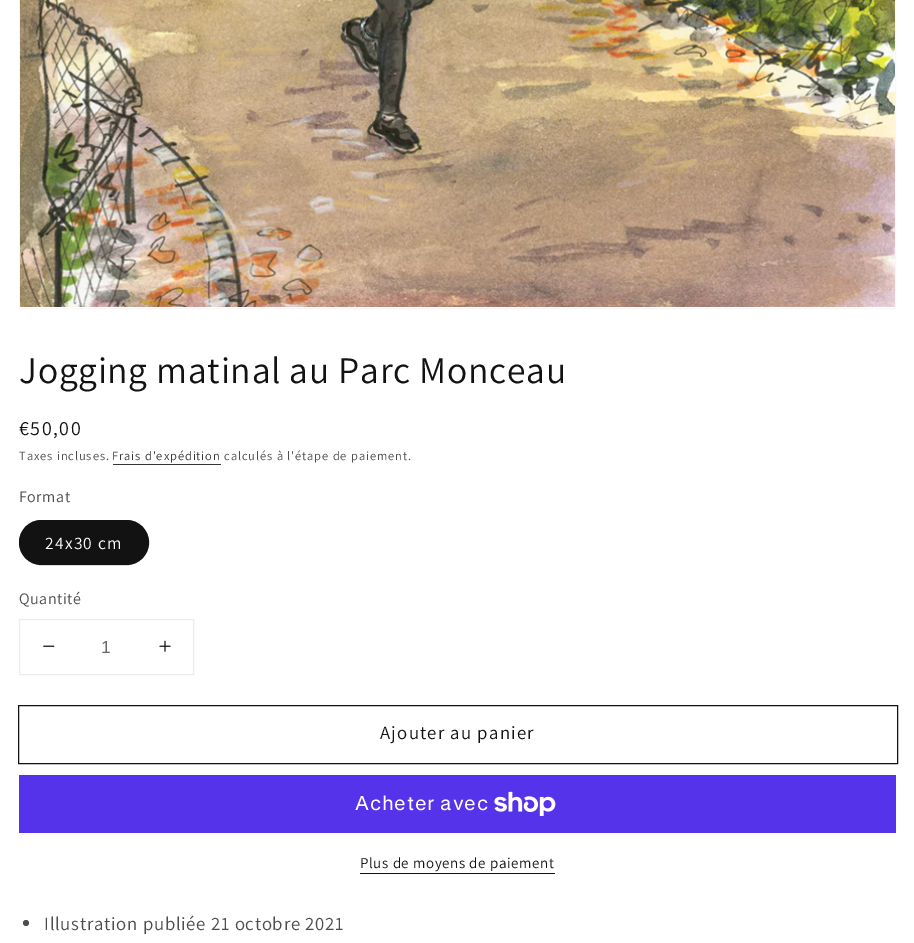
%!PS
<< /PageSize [914 943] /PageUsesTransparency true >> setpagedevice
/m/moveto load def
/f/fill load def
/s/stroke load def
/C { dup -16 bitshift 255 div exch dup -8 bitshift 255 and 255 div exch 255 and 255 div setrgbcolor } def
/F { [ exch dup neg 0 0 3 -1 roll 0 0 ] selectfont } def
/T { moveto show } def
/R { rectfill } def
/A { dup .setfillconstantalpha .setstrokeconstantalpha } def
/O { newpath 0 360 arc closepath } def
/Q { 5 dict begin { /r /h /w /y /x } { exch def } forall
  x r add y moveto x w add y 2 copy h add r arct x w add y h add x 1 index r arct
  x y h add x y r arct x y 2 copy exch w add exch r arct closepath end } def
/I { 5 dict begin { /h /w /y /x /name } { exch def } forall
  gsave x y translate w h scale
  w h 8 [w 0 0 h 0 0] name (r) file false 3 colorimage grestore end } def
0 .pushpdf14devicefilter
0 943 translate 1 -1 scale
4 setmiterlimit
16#FFFFFF C
0 0 914 943 R
16#F6F6F6 C
19.5 -.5 876 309 rectstroke
(1.rgb) 20 0 875 307 I
/Assistant-Regular 37.5 F
16#121212 C
19 383 m .75 0 (Jogging matinal au Parc Monceau) ashow
/Assistant-Regular 20 F
19 435 m 1.5 0 (€50,00) ashow
/Assistant-Regular 12.5 F
16#4D4D4D C
19 460 m .9 0 (Taxes incluses.) ashow
16#363636 C
112 460 m .9 0 (Frais d'expédition) ashow
113 464 108 1 R
16#4D4D4D C
224 460 m .9 0 (calculés à l'étape de paiement.) ashow
/Assistant-Regular 16 F
19 502 m .5 0 (Format) ashow
16#121212 C
19 520 130 45 22.5 Q f
0.55 A
19.5 520.5 129 44 22 Q s
/Assistant-Regular 17.5 F
1 A
16#FFFFFF C
45 549 m 1.25 0 (24x30 cm) ashow
/Assistant-Regular 16 F
16#4D4D4D C
19 604 m .5 0 (Quantité) ashow
16#ECECEC C
19.5 619.5 174 55 rectstroke
(2.rgb) 43 645 12 2 I
/LiberationSans-Regular 17.5 F
16#686868 C
(1) 101 653 T
(3.rgb) 159 640 12 12 I
16#121212 C
18.5 705.5 879 58 rectstroke
/Assistant-Regular 18.75 F
380 739 m 1.25 0 (Ajouter au panier) ashow
16#5433EB C
19 775 877 58 R
/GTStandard-Regular 20 F
16#FFFFFF C
355 810 m .75 0 (Acheter avec) ashow
(4.rgb) 494 791 62 25 I
/Assistant-Regular 15 F
16#121212 C
360 868 m .6 0 (Plus de moyens de paiement) ashow
360 873 195 1 R
16#4D4D4D C
26 923 3 O f
/Assistant-Regular 18.75 F
44 930 m .75 0 (Illustration publiée 21 octobre 2021) ashow
.poppdf14devicefilter showpage
